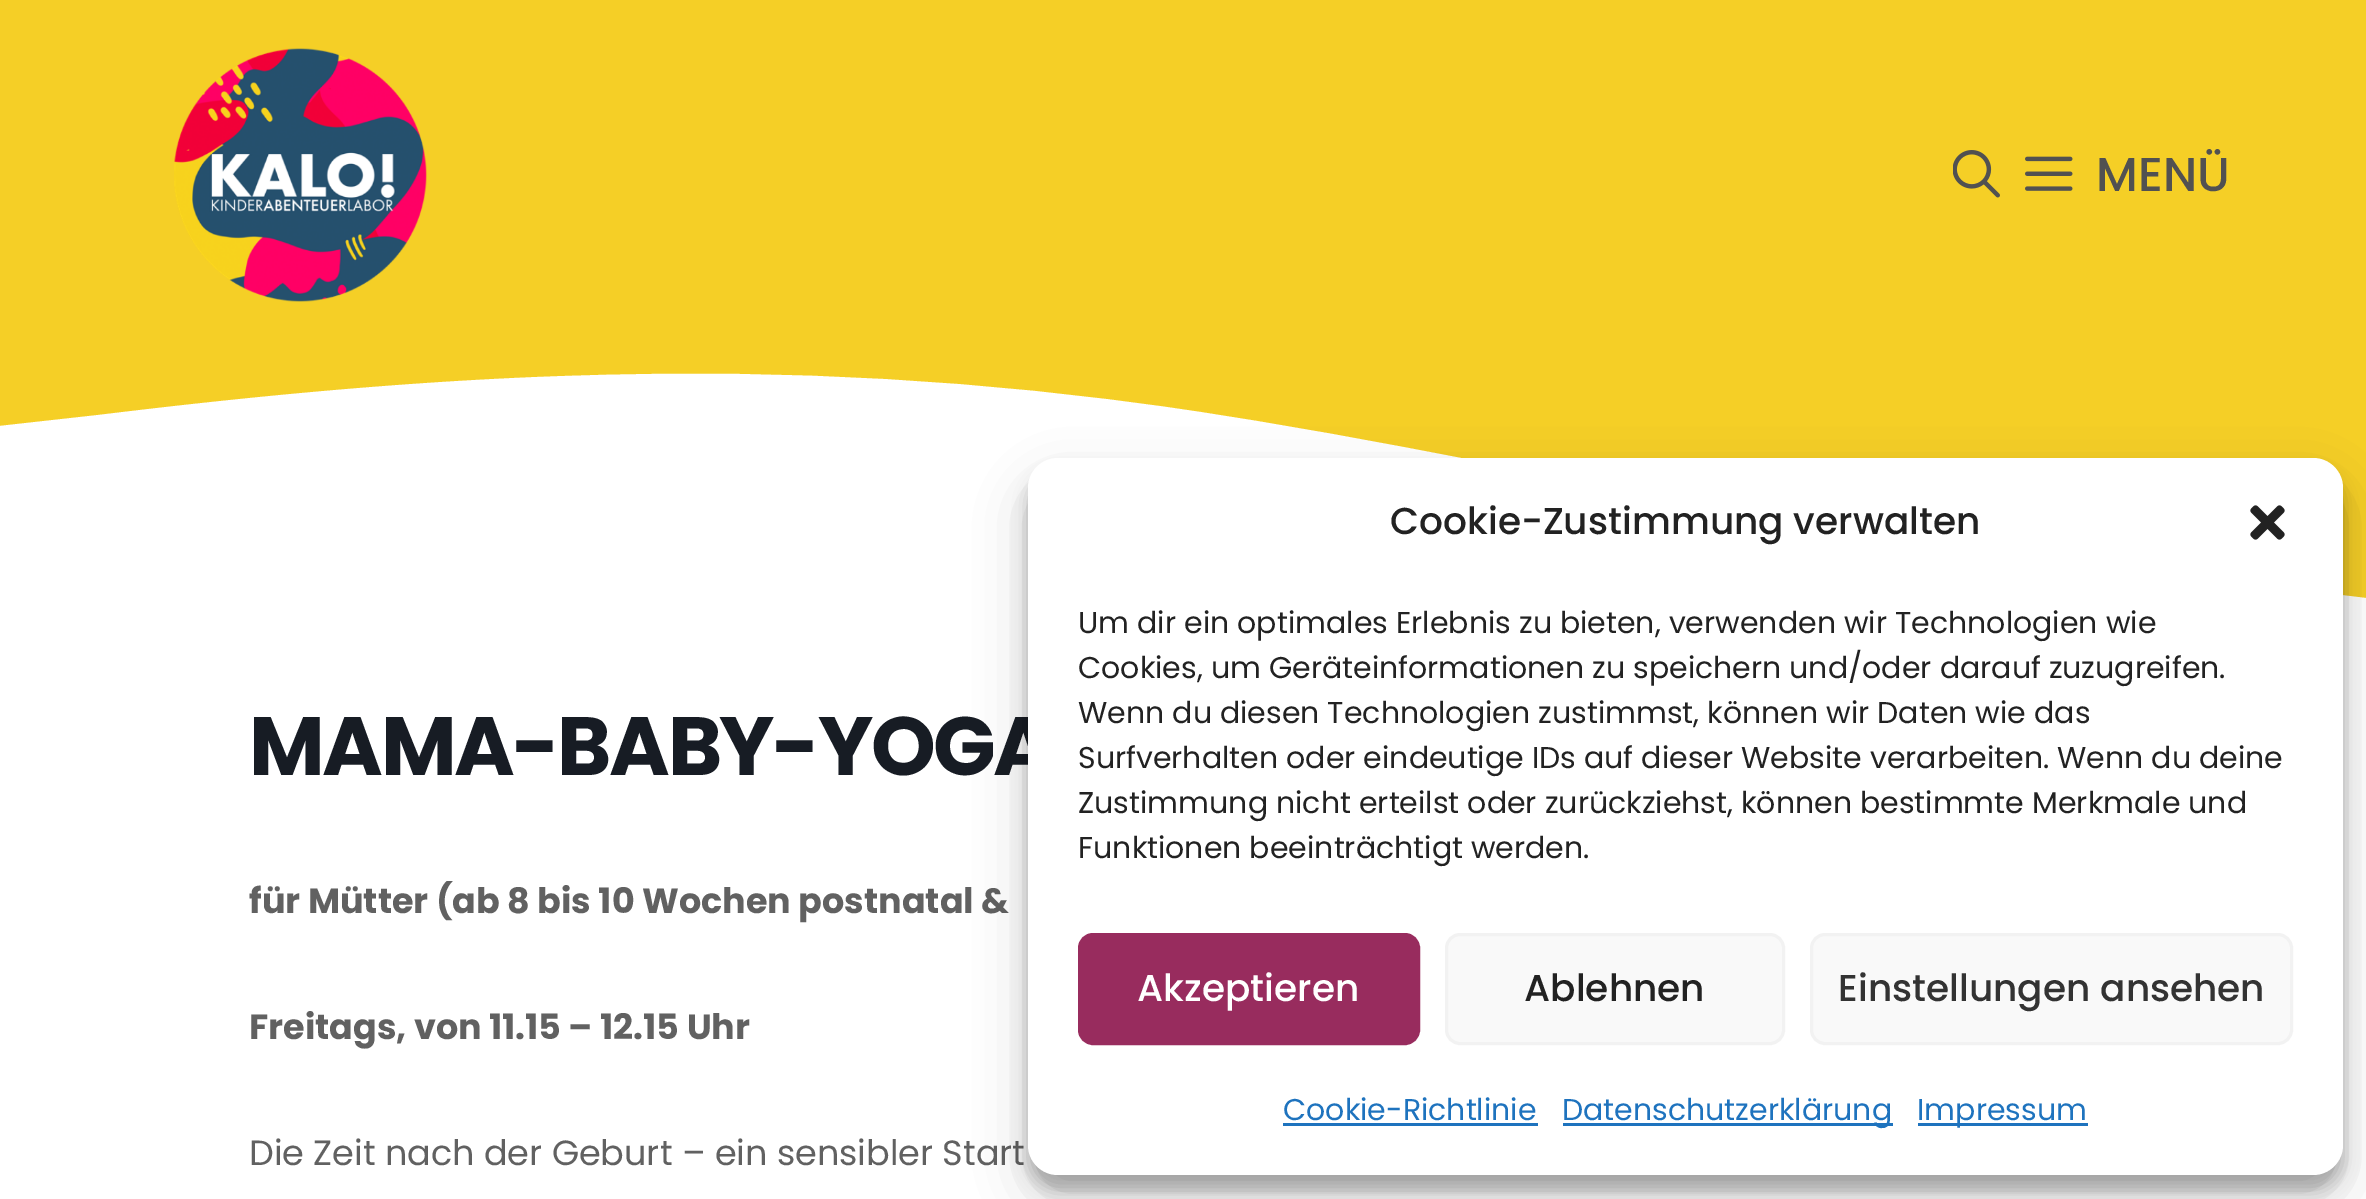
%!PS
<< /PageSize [2366 1199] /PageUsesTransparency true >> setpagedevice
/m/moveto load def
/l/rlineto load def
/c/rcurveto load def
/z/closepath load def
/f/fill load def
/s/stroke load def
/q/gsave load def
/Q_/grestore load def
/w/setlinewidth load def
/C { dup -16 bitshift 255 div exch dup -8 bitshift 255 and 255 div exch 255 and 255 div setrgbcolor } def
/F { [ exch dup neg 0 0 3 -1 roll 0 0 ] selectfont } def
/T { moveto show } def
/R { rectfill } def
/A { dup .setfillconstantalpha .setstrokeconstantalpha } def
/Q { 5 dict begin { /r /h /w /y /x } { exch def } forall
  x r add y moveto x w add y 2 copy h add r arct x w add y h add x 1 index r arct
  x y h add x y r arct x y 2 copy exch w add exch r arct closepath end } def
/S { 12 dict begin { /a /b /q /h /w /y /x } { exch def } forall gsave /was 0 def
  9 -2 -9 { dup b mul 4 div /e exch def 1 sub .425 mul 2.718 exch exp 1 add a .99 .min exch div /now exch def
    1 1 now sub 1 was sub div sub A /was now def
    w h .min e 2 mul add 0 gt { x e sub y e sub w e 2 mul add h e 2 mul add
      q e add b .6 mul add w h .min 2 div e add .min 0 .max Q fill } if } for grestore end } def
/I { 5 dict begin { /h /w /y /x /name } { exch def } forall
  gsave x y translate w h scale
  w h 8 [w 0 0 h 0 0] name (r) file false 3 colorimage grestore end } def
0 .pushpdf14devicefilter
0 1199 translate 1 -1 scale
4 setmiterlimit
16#FFFFFF C
0 0 2366 1199 R
16#F5CF26 C
0 0 2366 348 R
(1.rgb) 174 48 253 254 I
(2.rgb) 1953 150 47 48 I
(3.rgb) 2025 156 48 35 I
/Poppins-Medium 47.5 F
16#515151 C
(MENÜ) 2096 191 T
16#F5CF26 C
-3 426 m 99 -11 l 99 -12 296 -35 494 -40 c 197 -6 395 5 592 34 c 198 29 396 74 593 108 c 198 34 395 58 494 69 c 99 12 l 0 -250 l -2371 0 l z f
/Poppins-Bold 82.5 F
16#171C24 C
249 775 m -2.5 0 (MAMA-BABY-YOGA) ashow
/Poppins-Bold 35 F
16#616161 C
(für Mütter \(ab 8 bis 10 Wochen postnatal &) 249 913 T
(Freitags, von 11.15 – 12.15 Uhr) 249 1039 T
/Poppins-Regular 35 F
(Die Zeit nach der Geburt – ein sensibler Start) 249 1165 T
16#000000 C
1028 473 1315 717 30 7.5 .23 S
1028 483 1315 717 30 25 .19 S
16#FFFFFF C
1028 458 1315 717 30 Q f
/Poppins-Medium 37.5 F
16#222222 C
(Cookie-Zustimmung verwalten) 1390 534 T
(4.rgb) 2250 505 35 35 I
/Poppins-Regular 30 F
(Um dir ein optimales Erlebnis zu bieten, verwenden wir Technologien wie) 1078 633 T
(Cookies, um Geräteinformationen zu speichern und/oder darauf zuzugreifen.) 1078 678 T
(Wenn du diesen Technologien zustimmst, können wir Daten wie das) 1078 723 T
(Surfverhalten oder eindeutige IDs auf dieser Website verarbeiten. Wenn du deine) 1078 768 T
(Zustimmung nicht erteilst oder zurückziehst, können bestimmte Merkmale und) 1078 813 T
(Funktionen beeinträchtigt werden.) 1078 858 T
16#982C5E C
1079.5 934.5 339 109 13.5 Q q f Q_
3 w
s
/Poppins-Medium 37.5 F
16#FFFFFF C
(Akzeptieren) 1137 1001 T
16#F9F9F9 C
1446.5 934.5 337 109 13.5 Q q f Q_
16#F2F2F2 C
s
16#222222 C
(Ablehnen) 1524 1001 T
16#F9F9F9 C
1811.5 934.5 480 109 13.5 Q q f Q_
16#F2F2F2 C
s
16#333333 C
(Einstellungen ansehen) 1838 1001 T
/Poppins-Regular 30 F
16#1E73BE C
(Cookie-Richtlinie) 1283 1120 T
1283 1123 255 3 R
1563 1123 330 3 R
(Datenschutzerklärung) 1562 1120 T
1918 1123 170 3 R
(Impressum) 1917 1120 T
.poppdf14devicefilter showpage
